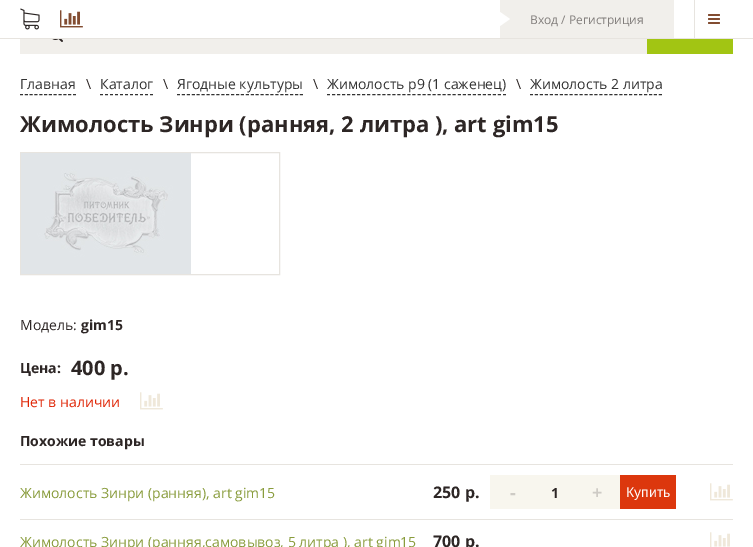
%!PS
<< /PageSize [753 547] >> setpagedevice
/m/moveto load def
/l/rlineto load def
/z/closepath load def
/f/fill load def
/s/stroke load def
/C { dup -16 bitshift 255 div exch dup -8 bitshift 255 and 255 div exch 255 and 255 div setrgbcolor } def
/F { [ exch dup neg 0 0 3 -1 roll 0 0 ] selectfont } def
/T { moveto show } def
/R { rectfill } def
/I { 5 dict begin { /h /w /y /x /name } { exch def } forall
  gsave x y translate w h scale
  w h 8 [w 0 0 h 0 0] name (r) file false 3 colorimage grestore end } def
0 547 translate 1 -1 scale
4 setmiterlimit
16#FFFFFF C
0 0 753 547 R
16#E7E4DF C
0 38 753 1 R
(1.rgb) 20 8 20 22 I
(2.rgb) 60 10 23 18 I
16#F1EFEB C
500 0 174 38 R
16#FFFFFF C
500 26 m 0 -14 l 10 7 l z f
/OpenSans-Regular 12 F
16#827E7C C
(Вход / Регистриция) 530 24 T
16#E7E4DF C
694 0 1 38 R
(3.rgb) 708 14 12 10 I
16#F1EFEB C
20 39 627 15 R
(4.rgb) 52 39 11 3 I
16#A2C513 C
647 39 86 15 R
/OpenSans-Regular 14 F
16#333333 C
(Главная) 20 89 T
[3 1.82] 0 setdash
20 94.5 m 56 0 l s
16#2D2625 C
(\\) 86 89 T
16#333333 C
(Каталог) 100 89 T
[3 2] 0 setdash
100 94.5 m 53 0 l s
16#2D2625 C
(\\) 163 89 T
16#333333 C
(Ягодные культуры) 177 89 T
[3 1.92] 0 setdash
177 94.5 m 126 0 l s
16#2D2625 C
(\\) 313 89 T
16#333333 C
(Жимолость р9 \(1 саженец\)) 327 89 T
[3 2.03] 0 setdash
327 94.5 m 179 0 l s
16#2D2625 C
(\\) 516 89 T
16#333333 C
(Жимолость 2 литра) 530 89 T
[3 1.96] 0 setdash
530 94.5 m 132 0 l s
/OpenSans-Bold 22 F
16#2D2625 C
(Жимолость Зинри \(ранняя, 2 литра \), art gim15) 20 132 T
16#E7E4DF C
[] 0 setdash
20.5 152.5 259 122 rectstroke
(5.rgb) 21 153 170 121 I
/OpenSans-Regular 14 F
16#2D2625 C
(Модель:) 20 330 T
/OpenSans-Bold 14 F
(gim15) 81 330 T
(Цена:) 20 373 T
/OpenSans-Bold 20 F
(400 р.) 71 375 T
/OpenSans-Regular 14 F
16#E02606 C
(Нет в наличии) 20 407 T
(6.rgb) 140 392 23 18 I
/OpenSans-Bold 14 F
16#2D2625 C
(Похожие товары) 20 446 T
16#E7E4DF C
20 464 713 1 R
/OpenSans-Regular 14 F
16#899C3C C
(Жимолость Зинри \(ранняя\), art gim15) 20 498 T
/OpenSans-Bold 16 F
16#2D2625 C
(250 р.) 433 498 T
16#F8F6EE C
490 475 130 34 R
/OpenSans-Bold 18 F
16#CECBC5 C
(-) 510 499 T
/OpenSans-Bold 14 F
16#2D2625 C
(1) 551 498 T
/OpenSans-Bold 18 F
16#CECBC5 C
(+) 592 499 T
16#DC370D C
620 475 56 34 R
/LiberationSans-Regular 14 F
16#FFFFFF C
(Купить) 626 497 T
(6.rgb) 710 483 23 18 I
16#E7E4DF C
20 519 713 1 R
/OpenSans-Regular 14 F
16#899C3C C
(Жимолость Зинри \(ранняя,самовывоз, 5 литра \), art gim15) 20 547 T
/OpenSans-Bold 16 F
16#2D2625 C
(700 р.) 433 547 T
(7.rgb) 710 532 20 15 I
showpage
